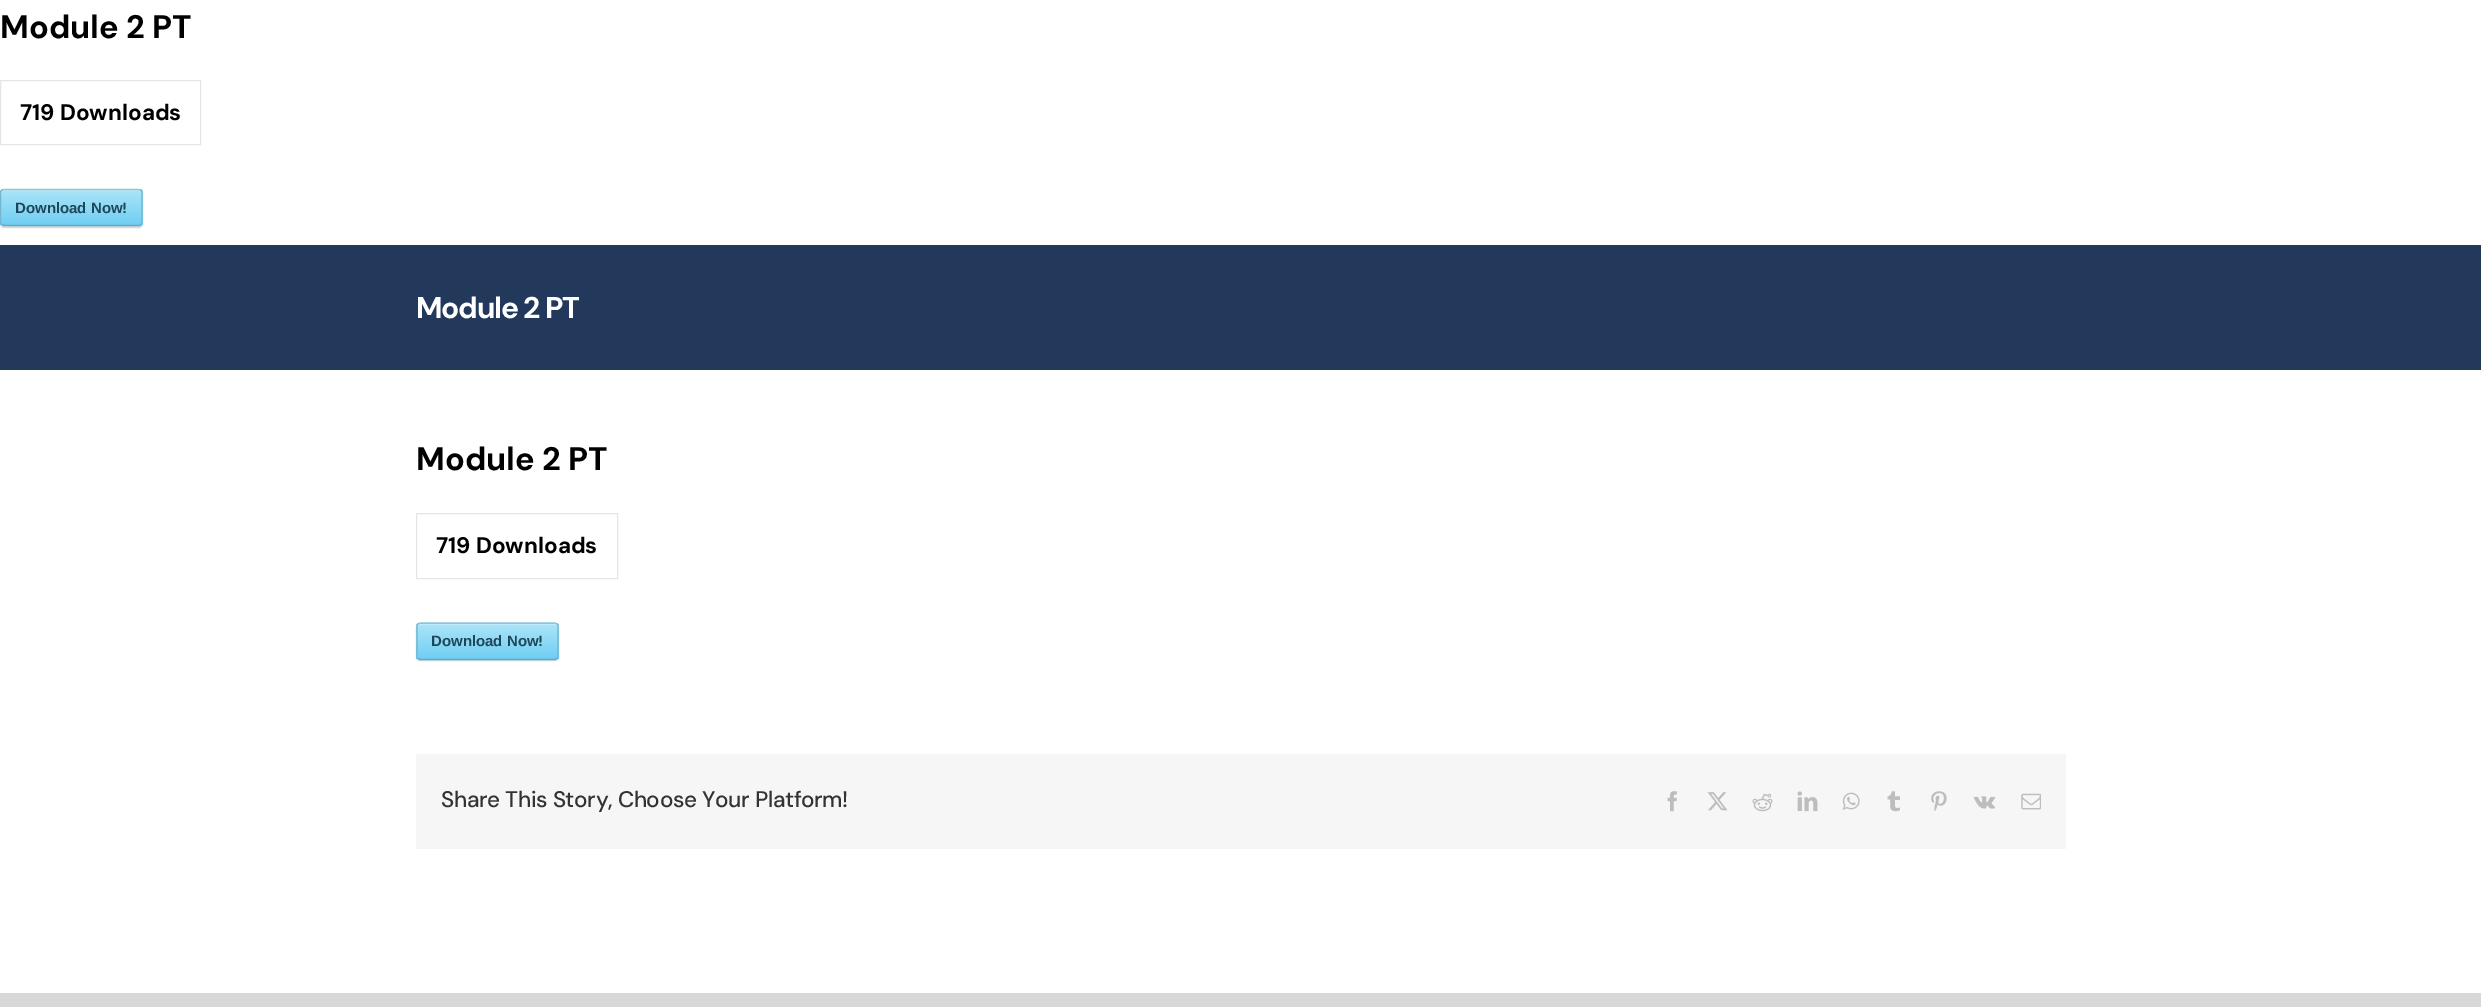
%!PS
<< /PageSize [2481 1007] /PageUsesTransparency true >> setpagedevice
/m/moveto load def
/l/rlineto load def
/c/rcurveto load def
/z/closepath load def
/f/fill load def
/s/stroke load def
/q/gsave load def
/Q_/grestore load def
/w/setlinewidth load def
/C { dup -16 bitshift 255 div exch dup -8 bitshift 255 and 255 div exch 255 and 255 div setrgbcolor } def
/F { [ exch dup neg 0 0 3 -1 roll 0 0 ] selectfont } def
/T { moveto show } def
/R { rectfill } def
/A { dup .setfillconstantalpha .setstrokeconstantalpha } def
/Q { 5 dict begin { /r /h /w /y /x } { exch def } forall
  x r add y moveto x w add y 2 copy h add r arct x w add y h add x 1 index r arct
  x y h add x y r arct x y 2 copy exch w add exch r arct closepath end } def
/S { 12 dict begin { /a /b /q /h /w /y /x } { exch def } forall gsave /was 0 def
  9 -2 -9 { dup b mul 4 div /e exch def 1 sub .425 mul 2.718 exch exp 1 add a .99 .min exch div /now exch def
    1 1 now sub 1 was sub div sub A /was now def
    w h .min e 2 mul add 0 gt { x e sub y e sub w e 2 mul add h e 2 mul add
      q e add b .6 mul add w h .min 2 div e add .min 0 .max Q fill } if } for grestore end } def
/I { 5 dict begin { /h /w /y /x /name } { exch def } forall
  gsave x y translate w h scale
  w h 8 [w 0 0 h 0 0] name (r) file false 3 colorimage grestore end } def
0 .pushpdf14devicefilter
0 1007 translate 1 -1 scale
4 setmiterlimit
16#FFFFFF C
0 0 2481 1007 R
/DMSans-Bold 32.5 F
16#000000 C
(Module 2 PT) 0 38 T
16#E8E4E3 C
.5 80.5 200 64 rectstroke
/DMSans-Bold 22.5 F
16#000000 C
(719 Downloads) 20 120 T
16#D6D6D6 C
0 190 143 38 4 .5 1 S
q
0 189 143 37 4 Q clip newpath
q 0 189 m 143 0 l 0 1 l -143 0 l z clip newpath
<< /ShadingType 2 /ColorSpace /DeviceRGB /Coords [1.2 155 1.2 190] /Extend [true true] /Function << /FunctionType 2 /Domain [0 1] /C0 [.671 .894 .973] /C1 [.435 .808 .953] /N 1 >> >> shfill Q_
q 0 190 m 143 0 l 0 35 l -143 0 l z clip newpath
<< /ShadingType 2 /ColorSpace /DeviceRGB /Coords [1.2 190 1.2 225] /Extend [true true] /Function << /FunctionType 2 /Domain [0 1] /C0 [.671 .894 .973] /C1 [.435 .808 .953] /N 1 >> >> shfill Q_
q 0 225 m 143 0 l 0 1 l -143 0 l z clip newpath
<< /ShadingType 2 /ColorSpace /DeviceRGB /Coords [1.2 225 1.2 260] /Extend [true true] /Function << /FunctionType 2 /Domain [0 1] /C0 [.671 .894 .973] /C1 [.435 .808 .953] /N 1 >> >> shfill Q_
Q_
16#C0EBFA C
4 191 m 135 0 l 1 0 2 1 2 3 c 0 -2 l 0 -1 -1 -2 -3 -2 c -134 0 l -2 0 -3 1 -3 2 c 0 2 l 0 -2 1 -3 3 -3 c z f
16#8DC5DA C
1.2 w
1.5 190.5 m 2 -1 l 135.5 0 l 2 1 l s
16#76B7CF C
141 190.5 m .5 .5 1 1 1 2 c 0 30 l 0 1 -.5 1.5 -1 2 c s
16#63ABC7 C
141 224.5 m -2 1 l -135 0 l -2.5 -1 l s
16#76B7CF C
1.5 224.5 m -.5 -.5 -1 -1 -1 -2 c 0 -30 l 0 -1 .5 -1.5 1 -2 c s
/LiberationSans-Bold 15 F
16#1E4657 C
(Download Now!) 15 213 T
16#22395B C
0 245 2481 125 R
/DMSans-Bold 30 F
16#FFFFFF C
416 318 m -1.25 0 (Module 2 PT) ashow
/DMSans-Bold 32.5 F
16#000000 C
(Module 2 PT) 416 470 T
16#E8E4E3 C
1 w
416.5 513.5 201 65 rectstroke
/DMSans-Bold 22.5 F
16#000000 C
(719 Downloads) 436 553 T
16#D6D6D6 C
416 624 143 37 4 .5 1 S
q
416 623 143 37 4 Q clip newpath
q 416 623 m 143 0 l 0 1 l -143 0 l z clip newpath
<< /ShadingType 2 /ColorSpace /DeviceRGB /Coords [418 589 418 624] /Extend [true true] /Function << /FunctionType 2 /Domain [0 1] /C0 [.671 .894 .973] /C1 [.435 .808 .953] /N 1 >> >> shfill Q_
q 416 624 m 143 0 l 0 35 l -143 0 l z clip newpath
<< /ShadingType 2 /ColorSpace /DeviceRGB /Coords [418 624 418 659] /Extend [true true] /Function << /FunctionType 2 /Domain [0 1] /C0 [.671 .894 .973] /C1 [.435 .808 .953] /N 1 >> >> shfill Q_
q 416 659 m 143 0 l 0 1 l -143 0 l z clip newpath
<< /ShadingType 2 /ColorSpace /DeviceRGB /Coords [418 659 418 694] /Extend [true true] /Function << /FunctionType 2 /Domain [0 1] /C0 [.671 .894 .973] /C1 [.435 .808 .953] /N 1 >> >> shfill Q_
Q_
16#C0EBFA C
420 625 m 135 0 l 1 0 3 1 3 3 c 0 -2 l 0 -1 -1 -2 -2 -2 c -136 0 l -1 0 -2 1 -2 2 c 0 2 l 0 -2 1 -3 2 -3 c z f
16#8DC5DA C
1.2 w
418 624 m 2 -1 l 135 0 l 2 1 l s
16#76B7CF C
557 624 m 1 .5 1 1.5 1 2 c 0 30 l 0 1 0 2 -1 2.5 c s
16#63ABC7 C
557 658.5 m -2 1 l -135 0 l -2 -1 l s
16#76B7CF C
418 658.5 m -1 -.5 -1 -1.5 -1 -2.5 c 0 -30 l 0 -.5 0 -1.5 1 -2 c s
/LiberationSans-Bold 15 F
16#1E4657 C
(Download Now!) 431 646 T
16#F6F6F6 C
416 754 1650 95 R
/DMSans-Medium 22.5 F
16#333333 C
441 807 m -.35 0 (Share This Story, Choose Your Platform!) ashow
(1.rgb) 1667 791 10 21 I
(2.rgb) 1707 792 21 19 I
(3.rgb) 1752 793 21 19 I
(4.rgb) 1797 791 21 21 I
(5.rgb) 1842 792 18 18 I
(6.rgb) 1887 791 13 21 I
(7.rgb) 1931 791 16 20 I
(8.rgb) 1973 796 23 13 I
(9.rgb) 2021 793 20 17 I
16#D8D8D8 C
0 993 2481 14 R
.poppdf14devicefilter showpage
